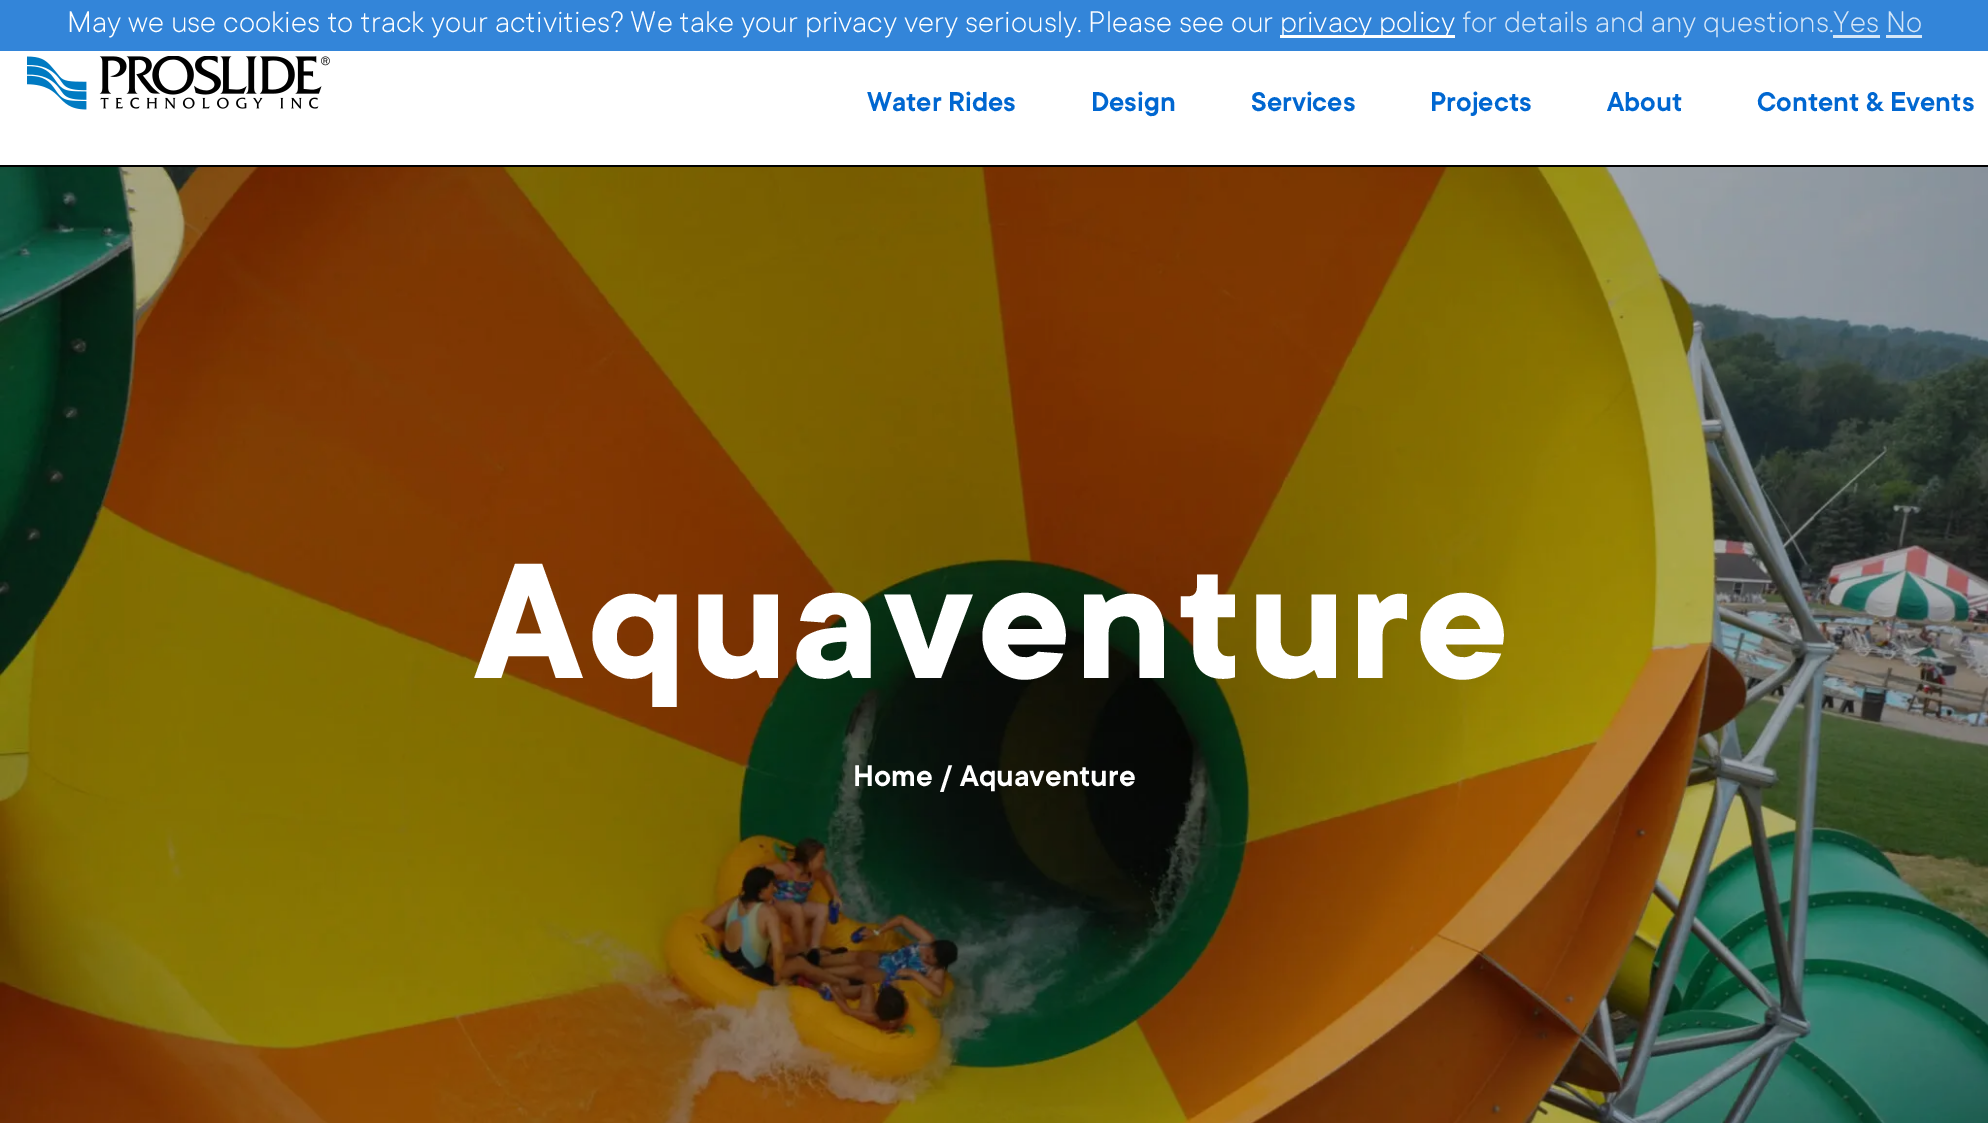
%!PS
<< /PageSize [1988 1123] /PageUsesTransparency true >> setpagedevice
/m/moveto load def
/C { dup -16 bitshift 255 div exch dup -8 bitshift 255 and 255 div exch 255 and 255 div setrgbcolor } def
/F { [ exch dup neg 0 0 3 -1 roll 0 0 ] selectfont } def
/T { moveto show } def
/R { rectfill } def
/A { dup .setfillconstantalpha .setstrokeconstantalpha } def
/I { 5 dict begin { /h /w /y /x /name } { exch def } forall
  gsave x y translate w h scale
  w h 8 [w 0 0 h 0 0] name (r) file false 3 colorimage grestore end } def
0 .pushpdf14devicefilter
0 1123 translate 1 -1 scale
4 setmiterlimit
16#FFFFFF C
0 0 1988 1123 R
0.8 A
16#0067D0 C
0 0 1988 51 R
/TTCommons-Light 33 F
1 A
16#FFFFFF C
(May we use cookies to track your activities? We take your privacy very seriously. Please see our) 67 32 T
1280 35 175 3 R
(privacy policy) 1280 32 T
16#D5E6F7 C
(for details and any questions.) 1462 32 T
(Yes) 1833 32 T
0.8 A
16#FFFFFF C
1833 35 47 3 R
1 A
16#D5E6F7 C
(No) 1886 32 T
0.8 A
16#FFFFFF C
1886 35 36 3 R
1 A
16#000000 C
0 165 1988 2 R
(1.rgb) 27 56 303 54 I
/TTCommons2-SemiBold 30 F
16#0067D1 C
(Water Rides) 867 111 T
(Design) 1091 111 T
(Services) 1251 111 T
(Projects) 1430 111 T
(About) 1607 111 T
(Content & Events) 1757 111 T
(2.rgb) 0 167 1988 956 I
/TTCommons-Bold 181.5 F
16#FFFFFF C
475 678 m 4.5 0 (Aquaventure) ashow
/TTCommons-SemiBold 33 F
(Home / Aquaventure) 853 786 T
.poppdf14devicefilter showpage
